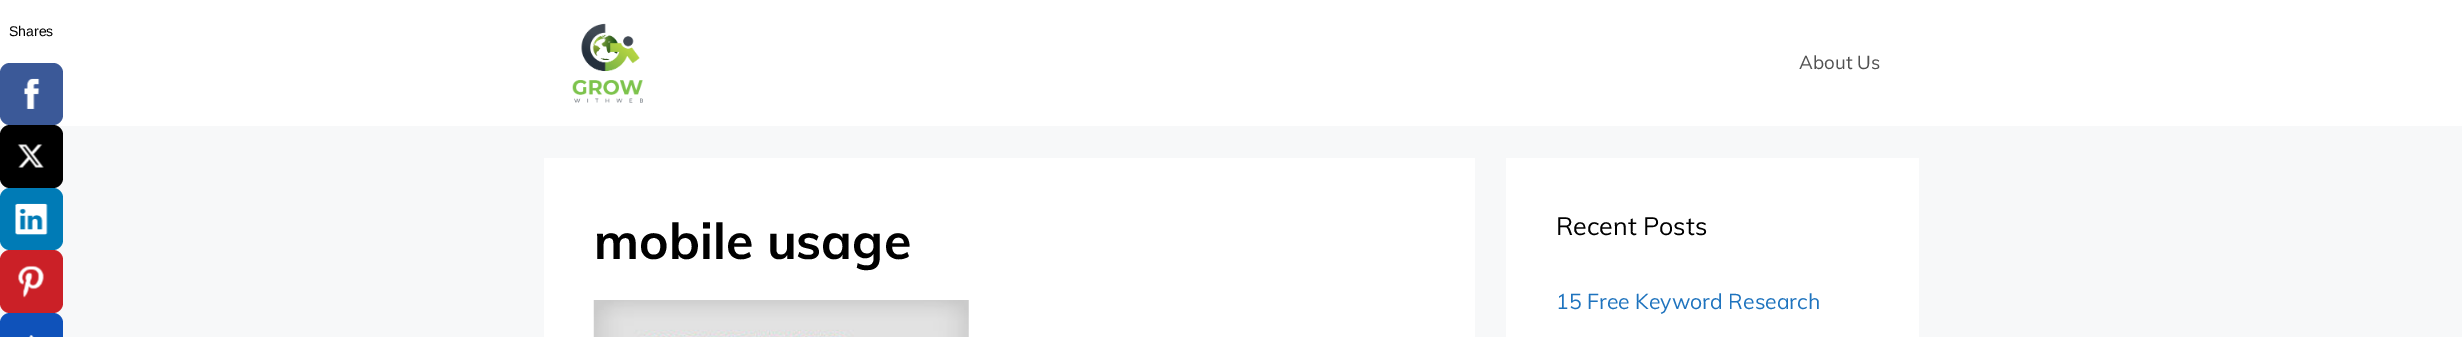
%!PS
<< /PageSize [2462 337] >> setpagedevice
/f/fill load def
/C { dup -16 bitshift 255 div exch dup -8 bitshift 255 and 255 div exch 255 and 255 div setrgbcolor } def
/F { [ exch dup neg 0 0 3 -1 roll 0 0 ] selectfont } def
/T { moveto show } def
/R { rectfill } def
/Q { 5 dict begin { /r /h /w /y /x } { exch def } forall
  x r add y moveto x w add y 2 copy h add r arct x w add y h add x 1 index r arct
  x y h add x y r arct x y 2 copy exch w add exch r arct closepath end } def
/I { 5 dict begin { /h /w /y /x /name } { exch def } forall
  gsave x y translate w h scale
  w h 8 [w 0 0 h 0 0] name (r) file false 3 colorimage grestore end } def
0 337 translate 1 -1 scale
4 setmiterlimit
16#F7F8F9 C
0 0 2462 337 R
16#FFFFFF C
0 0 2462 126 R
/LiberationSans-Regular 14 F
16#000000 C
(Shares) 9 36 T
16#3B5998 C
0 63 63 62 10 Q f
(1.rgb) 24 78 16 31 I
16#000000 C
0 125 63 63 10 Q f
(2.rgb) 17 144 27 24 I
16#007BB6 C
0 188 63 62 10 Q f
(3.rgb) 15 203 33 32 I
16#CB2027 C
0 250 63 63 10 Q f
(4.rgb) 18 265 26 33 I
16#0F52BA C
0 313 63 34 10 Q f
(5.rgb) 29 335 5 2 I
(6.rgb) 572 23 71 80 I
/Muli-Regular 18.75 F
16#515151 C
(About Us) 1799 69 T
16#FFFFFF C
544 158 931 179 R
/Muli-Bold 50 F
16#000000 C
(mobile usage) 594 259 T
(7.rgb) 593 300 376 37 I
16#FFFFFF C
1506 158 413 179 R
/Muli-Regular 25 F
16#000000 C
(Recent Posts) 1556 235 T
/Muli-Regular 21.25 F
16#1E73BE C
(15 Free Keyword Research) 1556 309 T
showpage
